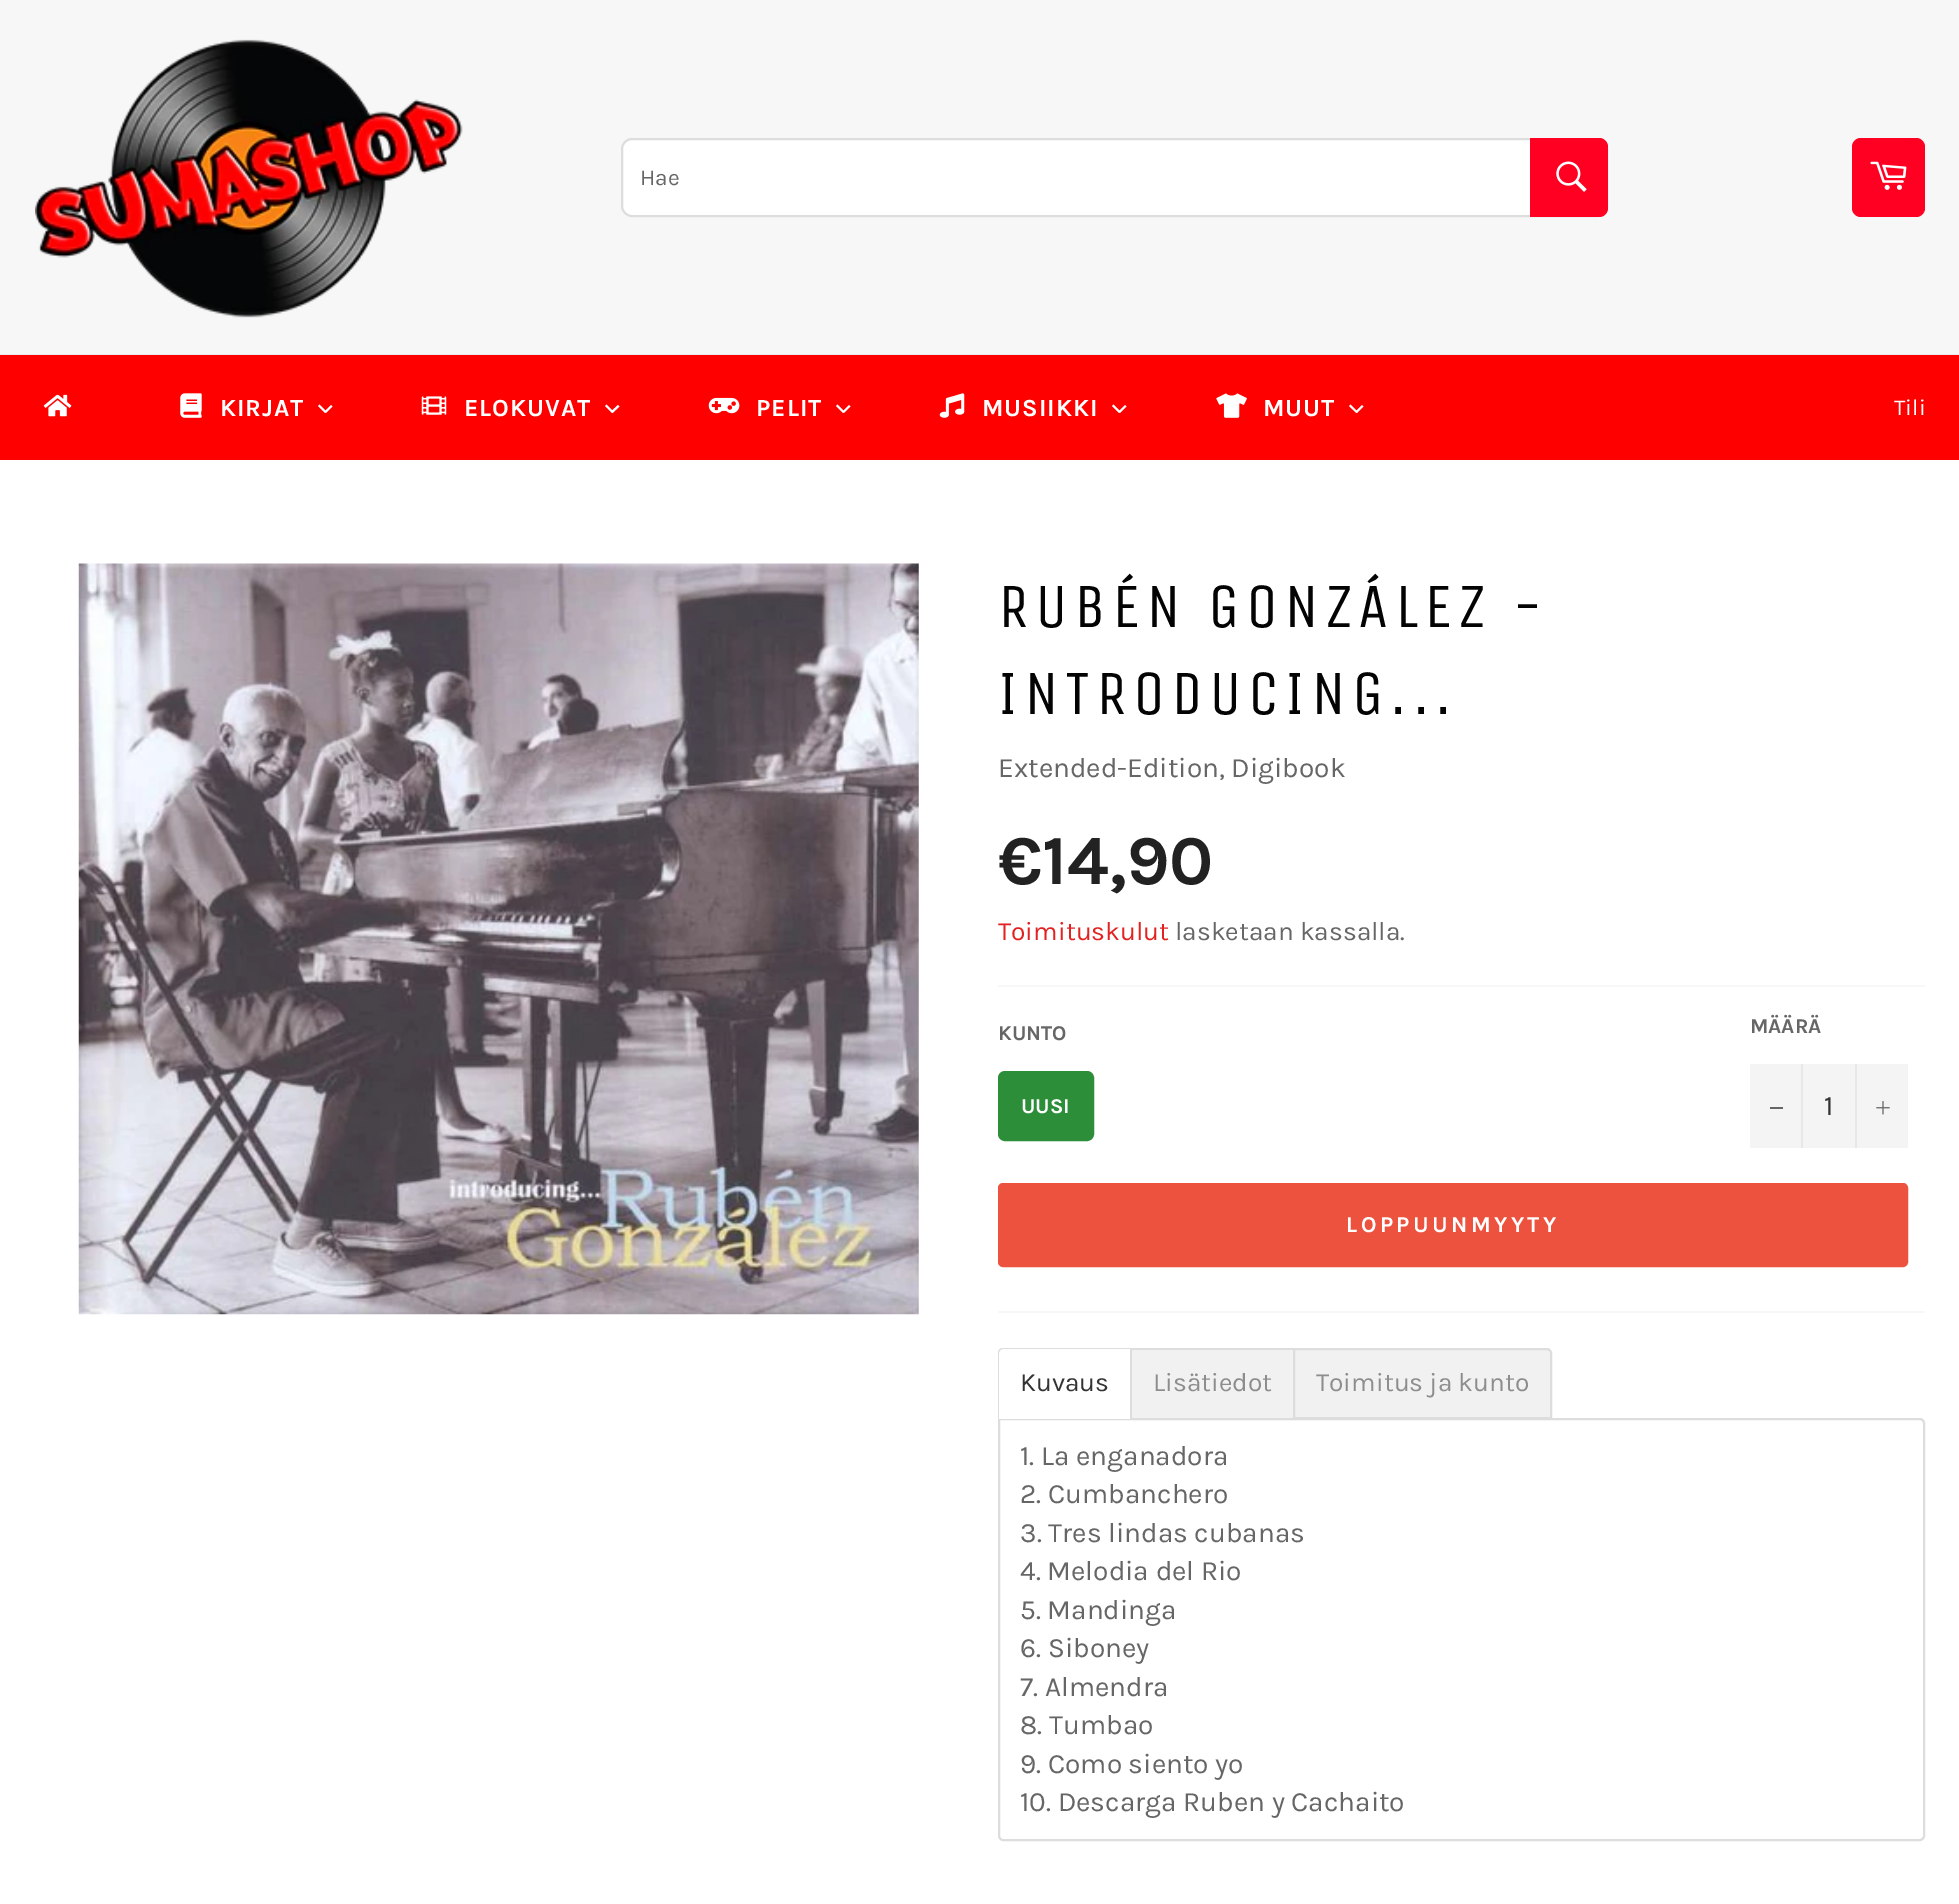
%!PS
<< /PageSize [1959 1904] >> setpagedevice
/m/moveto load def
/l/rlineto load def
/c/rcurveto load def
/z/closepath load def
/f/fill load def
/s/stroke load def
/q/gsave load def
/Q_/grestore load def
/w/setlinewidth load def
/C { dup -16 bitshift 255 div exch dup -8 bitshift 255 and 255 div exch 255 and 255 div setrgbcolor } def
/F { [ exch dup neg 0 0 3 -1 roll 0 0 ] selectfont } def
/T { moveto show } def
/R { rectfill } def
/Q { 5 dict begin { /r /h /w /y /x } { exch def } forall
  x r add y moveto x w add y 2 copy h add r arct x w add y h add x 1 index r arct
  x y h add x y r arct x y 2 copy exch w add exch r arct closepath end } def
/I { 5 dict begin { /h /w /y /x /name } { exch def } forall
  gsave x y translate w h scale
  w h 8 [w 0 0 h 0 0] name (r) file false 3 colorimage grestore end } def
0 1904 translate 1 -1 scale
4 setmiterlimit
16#F7F7F7 C
0 0 1959 1904 R
(1.rgb) 35 39 428 279 I
16#FFFFFF C
622 139 985 77 10 Q q f Q_
16#DDDDDD C
2 w
s
/Karla-Regular 22.75 F
16#666666 C
(Hae) 640 185 T
16#FF0022 C
1530 138 m 69 0 l 5 0 9 4 9 9 c 0 61 l 0 5 -4 9 -9 9 c -69 0 l z f
(2.rgb) 1556 161 31 31 I
1852 138 73 79 9 Q f
(3.rgb) 1870 161 37 29 I
16#EAEAEA C
0 354 1959 1 R
16#FF0000 C
0 355 1959 105 R
(4.rgb) 43 394 29 23 I
(5.rgb) 180 393 22 25 I
/Karla-Bold 24.5 F
16#FFFFFF C
220 416 m 1 0 (KIRJAT) ashow
331 405 m 1.5 1.5 l -6.5 6.5 l -1.5 -1.5 l z f
319.5 404.5 m 7 7 l -1.5 1.5 l -7 -7 l z f
(6.rgb) 421 396 26 19 I
464 416 m 1 0 (ELOKUVAT) ashow
618 405 m 1.5 1.5 l -7 6.5 l -1.5 -1.5 l z f
606.5 404.5 m 7 7 l -1.5 1.5 l -7 -7 l z f
(7.rgb) 708 397 32 17 I
756 416 m 1 0 (PELIT) ashow
849 405 m 1.5 1.5 l -6.5 6.5 l -1.5 -1.5 l z f
837.5 404.5 m 7 7 l -1.5 1.5 l -7 -7 l z f
(8.rgb) 939 393 26 25 I
982 416 m 1 0 (MUSIIKKI) ashow
1125 405 m 1.5 1.5 l -6.5 6.5 l -1.5 -1.5 l z f
1113.5 404.5 m 7 7 l -1.5 1.5 l -7 -7 l z f
(9.rgb) 1216 393 31 25 I
1263 416 m 1 0 (MUUT) ashow
1362 405 m 1.5 1.5 l -6.5 6.5 l -1.5 -1.5 l z f
1350.5 404.5 m 7 7 l -1 1.5 l -7.5 -7 l z f
/Karla-Regular 22.75 F
(Tili) 1894 415 T
0 460 1959 1444 R
(10.rgb) 78 563 841 752 I
/UnicaOne-Regular 63 F
16#030303 C
998 627 m 6.25 0 (RUBÉN GONZÁLEZ -) ashow
998 714 m 6.25 0 (INTRODUCING...) ashow
/Karla-Regular 28 F
16#666666 C
(Extended-Edition, Digibook) 998 777 T
/Karla-Bold 70 F
16#222222 C
(€14,90) 998 884 T
/Karla-Regular 26.25 F
16#E22120 C
(Toimituskulut) 998 940 T
16#666666 C
(lasketaan kassalla.) 1175 940 T
16#F7F7F7 C
998 985 927 2 R
/Karla-Bold 21 F
16#666666 C
(KUNTO) 998 1040 T
16#2C8E39 C
999 1072 94 68 6 Q q f Q_
s
16#FFFFFF C
(UUSI) 1021 1113 T
16#666666 C
(MÄÄRÄ) 1750 1033 T
16#F4F4F4 C
1750 1064 158 84 R
16#E7E7E7 C
1801 1064 2 84 R
16#666666 C
1770 1107 13 2 R
/Karla-Regular 28 F
16#333333 C
(1) 1824 1115 T
16#E7E7E7 C
1855 1064 2 84 R
(11.rgb) 1876 1101 14 14 I
16#EC523E C
999 1184 908 82 4 Q q f Q_
s
/Karla-Bold 22.75 F
16#FFFFFF C
1346 1232 m 3.4 0 (LOPPUUNMYYTY) ashow
16#F7F7F7 C
998 1311 927 2 R
16#DDDDDD C
999 1419 m 921 0 l 2 0 4 2 4 4 c 0 413 l 0 2 -2 4 -4 4 c -917 0 l -2 0 -4 -2 -4 -4 c z s
16#FFFFFF C
1003 1349 m 128 0 l 0 70 l -132 0 l 0 -66 l 0 -2 2 -4 4 -4 c z f
16#DDDDDD C
1003 1348 m 129 0 l 0 71 l -134 0 l 0 -66 l 0 -3 2 -5 5 -5 c z 1003 1349 m 127 0 l 0 70 l -131 0 l 0 -66 l 0 -2 2 -4 4 -4 c z eofill
/Karla-Regular 26.25 F
16#333333 C
(Kuvaus) 1020 1391 T
16#F1F1F1 C
1132 1350 161 68 R
16#DDDDDD C
1132 1348 161 2 R
16#8D8D8D C
(Lisätiedot) 1153 1391 T
16#F1F1F1 C
1294 1349 m 253 0 l 2 0 4 2 4 4 c 0 65 l -257 0 l z q f Q_
16#DDDDDD C
s
16#8D8D8D C
(Toimitus ja kunto) 1316 1391 T
/Karla-Regular 28 F
16#666666 C
(1. La enganadora) 1020 1465 T
(2. Cumbanchero) 1020 1503 T
(3. Tres lindas cubanas) 1020 1542 T
(4. Melodia del Rio) 1020 1580 T
(5. Mandinga) 1020 1619 T
(6. Siboney) 1020 1657 T
(7. Almendra) 1020 1696 T
(8. Tumbao) 1020 1734 T
(9. Como siento yo) 1020 1773 T
(10. Descarga Ruben y Cachaito) 1020 1811 T
showpage
